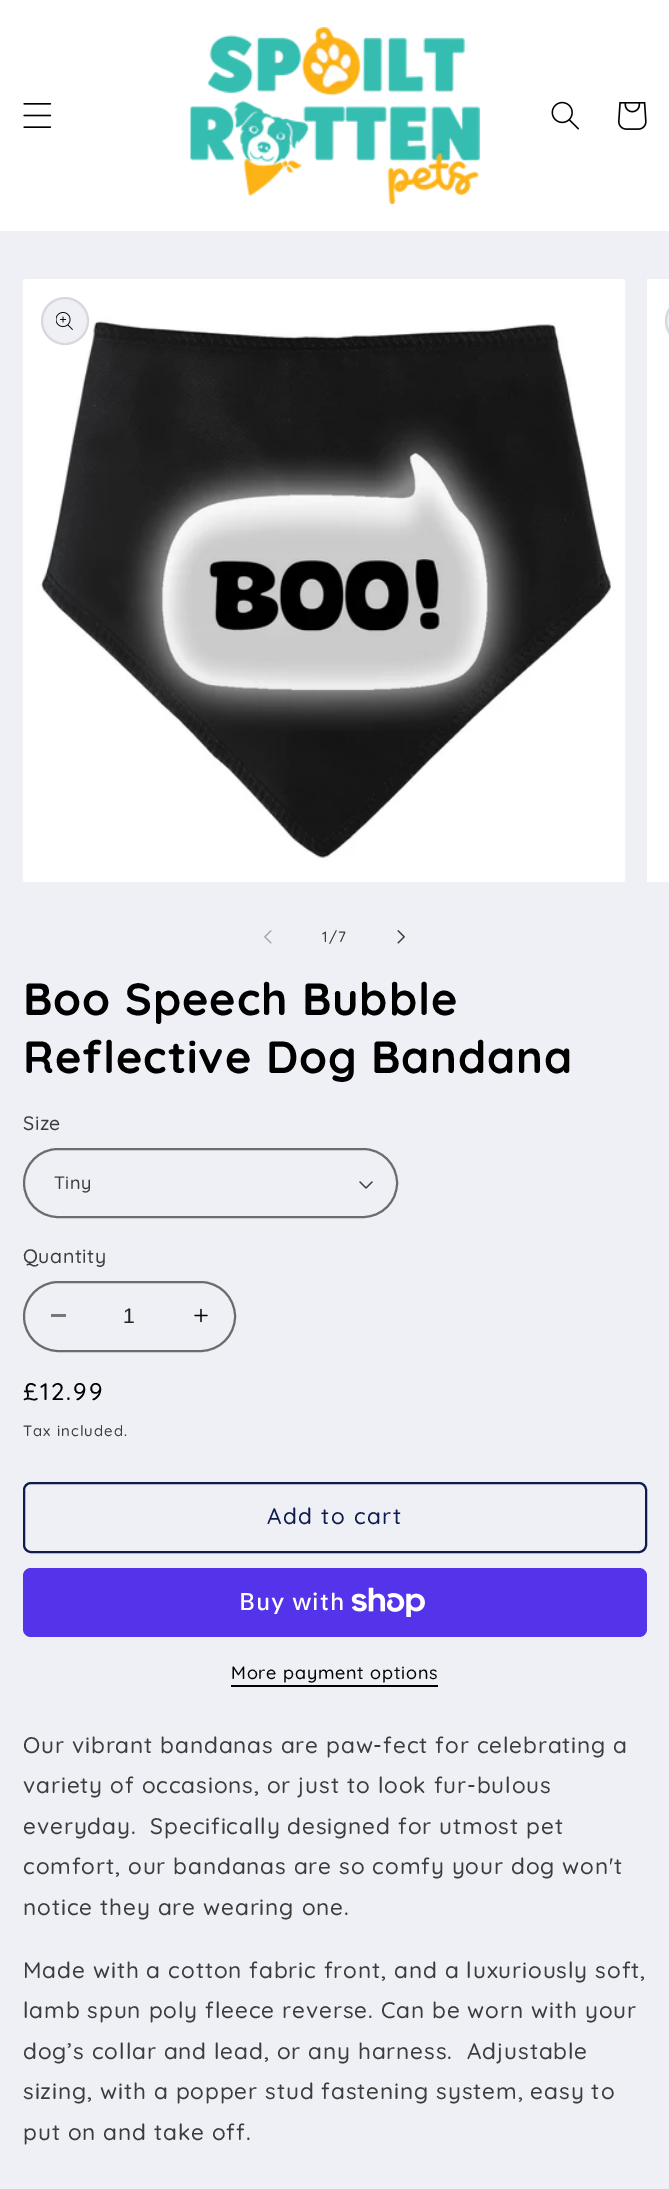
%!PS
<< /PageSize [669 2189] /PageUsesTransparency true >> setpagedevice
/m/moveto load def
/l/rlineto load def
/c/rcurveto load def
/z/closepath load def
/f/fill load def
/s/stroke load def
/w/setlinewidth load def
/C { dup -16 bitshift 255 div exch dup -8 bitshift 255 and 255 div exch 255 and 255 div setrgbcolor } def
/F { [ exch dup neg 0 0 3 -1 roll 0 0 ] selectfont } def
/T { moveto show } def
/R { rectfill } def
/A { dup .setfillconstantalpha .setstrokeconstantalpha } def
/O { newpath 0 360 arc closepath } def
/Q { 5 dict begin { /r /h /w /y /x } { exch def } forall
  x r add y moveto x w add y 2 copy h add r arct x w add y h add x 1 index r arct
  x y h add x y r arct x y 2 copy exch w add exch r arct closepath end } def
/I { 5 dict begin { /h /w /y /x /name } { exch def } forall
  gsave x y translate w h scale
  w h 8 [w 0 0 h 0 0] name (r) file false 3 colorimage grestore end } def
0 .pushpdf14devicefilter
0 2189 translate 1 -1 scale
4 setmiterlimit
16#EFF0F5 C
0 0 669 2189 R
16#FFFFFF C
0 0 669 231 R
(1.rgb) 23 103 29 25 I
(2.rgb) 190 27 290 177 I
(3.rgb) 551 101 28 29 I
(4.rgb) 618 102 29 28 I
(5.rgb) 22 279 604 603 I
16#EFF0F5 C
65 321 24 O f
0.1 A
16#000000 C
2 w
65 321 23 O s
1 A
(6.rgb) 56 312 17 18 I
16#FFFFFF C
647 279 22 603 R
16#EFF0F5 C
689 297 m -20 0 l 0 48 l 20 0 l -13.5 0 -24 -10.5 -24 -24 c 0 -13.5 10.5 -24 24 -24 c z f
0.1 A
16#000000 C
666 298 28 46 23 Q s
1 A
(7.rgb) 264 930 8 14 I
/Quicksand-Medium 15 F
16#3C3C3D C
322 942 m 1 0 (1/7) ashow
(8.rgb) 397 930 8 14 I
/Quicksand-Bold 45 F
16#000000 C
23 1015 m .9 0 (Boo Speech Bubble) ashow
23 1073 m .9 0 (Reflective Dog Bandana) ashow
/Quicksand-Medium 19.5 F
16#3C3C3D C
23 1130 m .5 0 (Size) ashow
(9.rgb) 359 1181 14 8 I
16#6C6C6E C
24 1149 373 68 34 Q s
/Quicksand-Medium 18 F
16#3C3C3D C
54 1189 m .5 0 (Tiny) ashow
/Quicksand-Medium 19.5 F
23 1263 m .5 0 (Quantity) ashow
16#78787B C
51 1314 15 3 R
(10.rgb) 194 1308 14 15 I
16#6C6C6E C
24 1282 211 69 34.5 Q s
/LiberationSans-Regular 21 F
16#242425 C
(1) 123 1323 T
/Quicksand-Medium 24 F
16#000000 C
23 1400 m 2 0 (£12.99) ashow
/Quicksand-Medium 15 F
16#3C3C3D C
23 1436 m 1 0 (Tax included.) ashow
16#0E1B4D C
24 1483 622 69 7 Q s
/Quicksand-Medium 22.5 F
267 1524 m 1.5 0 (Add to cart) ashow
16#5433EB C
23 1568 624 69 8 Q f
/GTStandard-Medium 24 F
16#FFFFFF C
239 1610 m .9 0 (Buy with) ashow
(11.rgb) 351 1587 74 30 I
/Quicksand-Medium 18 F
16#000000 C
231 1679 m .75 0 (More payment options) ashow
231 1685 207 2 R
/Quicksand-Medium 22.5 F
16#3C3C3D C
23 1753 m .9 0 (Our vibrant bandanas are paw-fect for celebrating a) ashow
23 1793 m .9 0 (variety of occasions, or just to look fur-bulous) ashow
23 1834 m .9 0 (everyday.  Specifically designed for utmost pet) ashow
23 1874 m .9 0 (comfort, our bandanas are so comfy your dog won't) ashow
23 1915 m .9 0 (notice they are wearing one.) ashow
23 1978 m .9 0 (Made with a cotton fabric front, and a luxuriously soft,) ashow
23 2018 m .9 0 (lamb spun poly fleece reverse. Can be worn with your) ashow
23 2059 m .9 0 (dog’s collar and lead, or any harness.  Adjustable) ashow
23 2099 m .9 0 (sizing, with a popper stud fastening system, easy to) ashow
23 2140 m .9 0 (put on and take off.) ashow
.poppdf14devicefilter showpage
